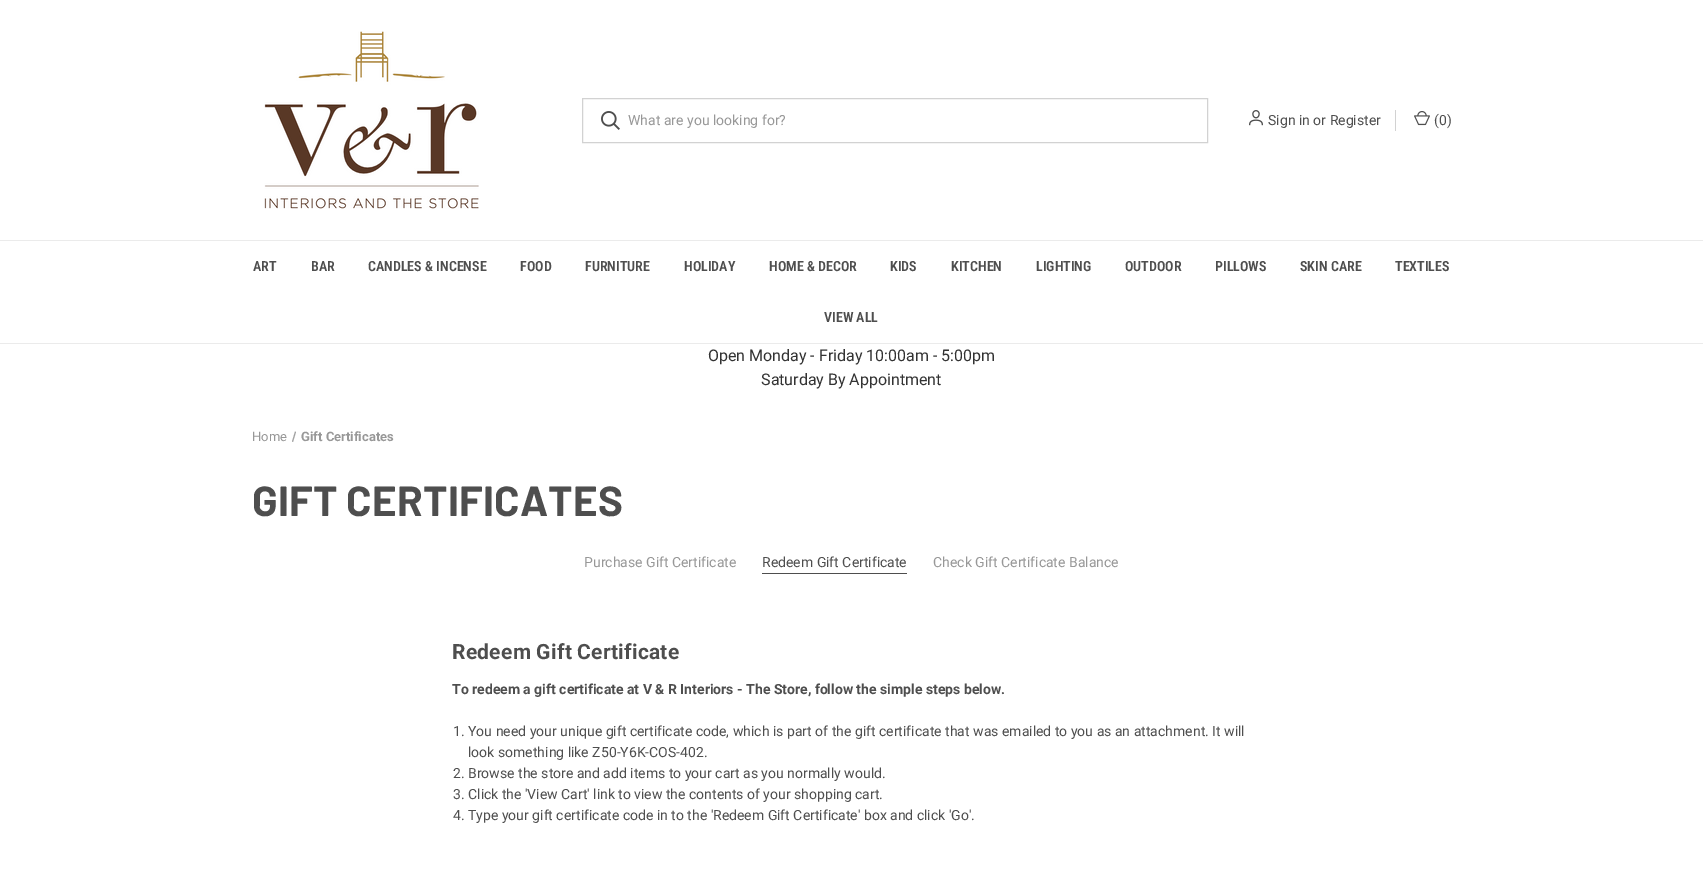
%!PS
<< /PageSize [1703 875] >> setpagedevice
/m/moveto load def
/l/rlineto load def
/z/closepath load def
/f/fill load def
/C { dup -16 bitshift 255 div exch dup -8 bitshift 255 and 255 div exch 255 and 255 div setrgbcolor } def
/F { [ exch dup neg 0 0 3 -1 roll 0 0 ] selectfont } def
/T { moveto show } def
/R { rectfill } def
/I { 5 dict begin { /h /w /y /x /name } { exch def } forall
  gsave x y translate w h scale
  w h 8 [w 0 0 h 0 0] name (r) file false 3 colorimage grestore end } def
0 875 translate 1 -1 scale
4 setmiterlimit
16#FFFFFF C
0 0 1703 875 R
(1.rgb) 264 31 215 178 I
16#D2D2D2 C
582.5 98.5 625 44 rectstroke
(2.rgb) 601 111 19 19 I
/Roboto-Regular 14 F
16#989898 C
(What are you looking for?) 628 125 T
(3.rgb) 1249 110 14 16 I
16#4E4E4E C
(Sign in or Register) 1268 125 T
16#D2D2D2 C
1395 110 1 21 R
(4.rgb) 1414 111 16 15 I
16#4E4E4E C
(\(0\)) 1434 125 T
16#EBEBEB C
0 240 1703 1 R
0 343 1703 1 R
/RobotoCondensed-SemiBold 14 F
16#4E4E4E C
(ART) 253 271 T
(BAR) 311 271 T
(CANDLES & INCENSE) 368 271 T
(FOOD) 520 271 T
(FURNITURE) 585 271 T
(HOLIDAY) 684 271 T
(HOME & DECOR) 769 271 T
(KIDS) 890 271 T
(KITCHEN) 951 271 T
(LIGHTING) 1036 271 T
(OUTDOOR) 1125 271 T
(PILLOWS) 1215 271 T
(SKIN CARE) 1300 271 T
(TEXTILES) 1395 271 T
(VIEW ALL) 824 322 T
/Roboto-Regular 16 F
16#333333 C
(Open Monday - Friday 10:00am - 5:00pm) 708 361 T
(Saturday By Appointment) 761 385 T
/Roboto-Regular 13 F
16#989898 C
(Home) 252 441 T
16#A3A3A3 C
295 431.5 m 1 .5 l -3 10 l -1 -.5 l z f
/Roboto-Bold 13 F
16#989898 C
(Gift Certificates) 301 441 T
/Barlow-Bold 42 F
16#4E4E4E C
252 516 m .25 0 (GIFT CERTIFICATES) ashow
/Roboto-Regular 14 F
16#989898 C
(Purchase Gift Certificate) 584 567 T
16#4E4E4E C
762 573 145 1 R
(Redeem Gift Certificate) 762 567 T
16#989898 C
(Check Gift Certificate Balance) 933 567 T
/Roboto-Bold 21 F
16#4E4E4E C
452 659 m .25 0 (Redeem Gift Certificate) ashow
/Roboto-Bold 14 F
(To redeem a gift certificate at V & R Interiors - The Store, follow the simple steps below.) 452 694 T
/Roboto-Regular 14 F
(1. You need your unique gift certificate code, which is part of the gift certificate that was emailed to you as an attachment. It will) 453 736 T
(look something like Z50-Y6K-COS-402.) 468 757 T
(2. Browse the store and add items to your cart as you normally would.) 453 778 T
(3. Click the 'View Cart' link to view the contents of your shopping cart.) 453 799 T
(4. Type your gift certificate code in to the 'Redeem Gift Certificate' box and click 'Go'.) 453 820 T
showpage
